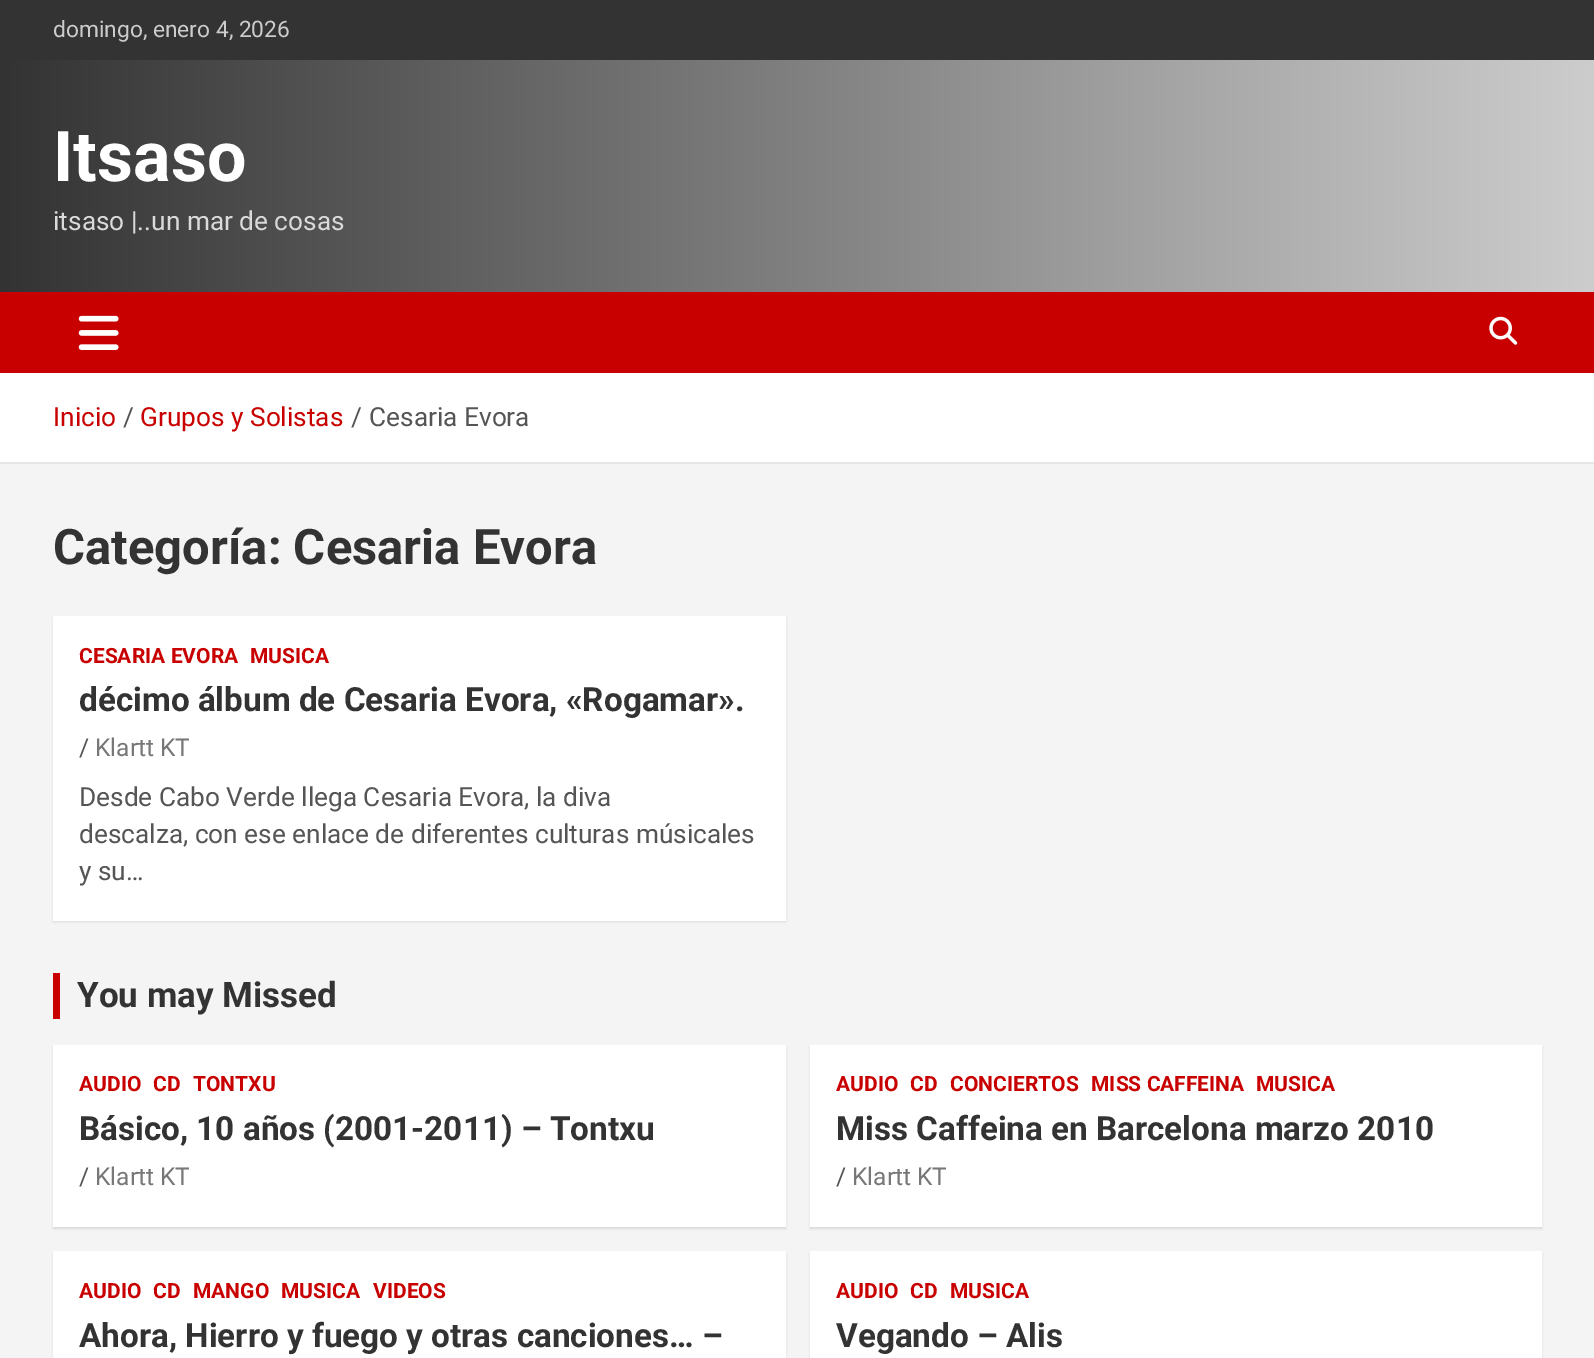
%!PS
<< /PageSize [1594 1358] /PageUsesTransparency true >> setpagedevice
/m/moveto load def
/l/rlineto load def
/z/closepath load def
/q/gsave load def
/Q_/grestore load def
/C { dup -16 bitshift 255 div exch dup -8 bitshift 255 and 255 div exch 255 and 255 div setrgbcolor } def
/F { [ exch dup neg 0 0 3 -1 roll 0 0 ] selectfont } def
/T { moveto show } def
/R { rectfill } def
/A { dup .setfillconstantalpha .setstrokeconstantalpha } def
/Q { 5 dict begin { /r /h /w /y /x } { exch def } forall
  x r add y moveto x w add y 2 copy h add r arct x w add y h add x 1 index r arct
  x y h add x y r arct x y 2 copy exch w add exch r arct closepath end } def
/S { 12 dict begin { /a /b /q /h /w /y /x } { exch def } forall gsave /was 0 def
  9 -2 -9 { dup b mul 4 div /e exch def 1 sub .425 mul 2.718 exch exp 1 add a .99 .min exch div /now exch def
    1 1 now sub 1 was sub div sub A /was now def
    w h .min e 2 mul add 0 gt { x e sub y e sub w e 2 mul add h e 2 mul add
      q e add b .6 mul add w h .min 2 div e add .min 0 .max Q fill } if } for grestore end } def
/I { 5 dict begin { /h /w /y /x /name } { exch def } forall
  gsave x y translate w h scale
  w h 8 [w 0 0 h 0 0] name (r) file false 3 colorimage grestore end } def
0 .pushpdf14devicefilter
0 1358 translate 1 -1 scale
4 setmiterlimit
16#F4F4F4 C
0 0 1594 1358 R
16#333333 C
0 0 1594 60 R
/Roboto-Regular 22.75 F
16#CCCCCC C
(domingo, enero 4, 2026) 53 37 T
q 0 60 m 1594 0 l 0 232 l -1594 0 l z clip newpath
<< /ShadingType 2 /ColorSpace /DeviceRGB /Coords [0 176 1594 176] /Extend [true true] /Function << /FunctionType 2 /Domain [0 1] /C0 [.2 .2 .2] /C1 [.804 .804 .804] /N 1 >> >> shfill Q_
/Roboto-Bold 70 F
16#FFFFFF C
(Itsaso) 53 181 T
/Roboto-Regular 26.25 F
16#DADADA C
(itsaso |..un mar de cosas) 53 230 T
16#C80000 C
0 292 1594 81 R
(1.rgb) 78 315 41 35 I
(2.rgb) 1489 316 29 29 I
16#FFFFFF C
0 373 1594 89 R
16#E6E6E6 C
0 462 1594 2 R
16#C80000 C
(Inicio) 53 426 T
16#555555 C
(/) 123 426 T
16#C80000 C
(Grupos y Solistas) 140 426 T
16#555555 C
(/) 351 426 T
(Cesaria Evora) 369 426 T
/Roboto-Bold 49 F
16#333333 C
(Categoría: Cesaria Evora) 53 564 T
16#000000 C
53 618 733 304 0 1 .1 S
16#FFFFFF C
53 616 733 305 R
/Roboto-Bold 21 F
16#C80000 C
(CESARIA EVORA) 79 663 T
(MUSICA) 250 663 T
/Roboto-Bold 33.25 F
16#333333 C
(décimo álbum de Cesaria Evora, «Rogamar».) 79 711 T
/Roboto-Regular 24.5 F
16#555555 C
(/) 79 756 T
16#777777 C
(Klartt KT) 95 756 T
/Roboto-Regular 26.25 F
16#555555 C
(Desde Cabo Verde llega Cesaria Evora, la diva) 79 806 T
(descalza, con ese enlace de diferentes culturas músicales) 79 843 T
(y su…) 79 880 T
16#C80000 C
53 973 7 46 R
/Roboto-Bold 35 F
16#333333 C
(You may Missed) 77 1007 T
16#000000 C
53 1047 733 182 0 1 .1 S
16#FFFFFF C
53 1045 733 182 R
/Roboto-Bold 21 F
16#C80000 C
(AUDIO) 79 1091 T
(CD) 153 1091 T
(TONTXU) 193 1091 T
/Roboto-Bold 33.25 F
16#333333 C
(Básico, 10 años \(2001-2011\) – Tontxu) 79 1140 T
/Roboto-Regular 24.5 F
16#555555 C
(/) 79 1185 T
16#777777 C
(Klartt KT) 95 1185 T
16#000000 C
810 1047 732 182 0 1 .1 S
16#FFFFFF C
810 1045 732 182 R
/Roboto-Bold 21 F
16#C80000 C
(AUDIO) 836 1091 T
(CD) 910 1091 T
(CONCIERTOS) 950 1091 T
(MISS CAFFEINA) 1091 1091 T
(MUSICA) 1256 1091 T
/Roboto-Bold 33.25 F
16#333333 C
(Miss Caffeina en Barcelona marzo 2010) 836 1140 T
/Roboto-Regular 24.5 F
16#555555 C
(/) 836 1185 T
16#777777 C
(Klartt KT) 852 1185 T
16#000000 C
53 1253 733 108 0 1 .1 S
16#FFFFFF C
53 1251 733 107 R
/Roboto-Bold 21 F
16#C80000 C
(AUDIO) 79 1298 T
(CD) 153 1298 T
(MANGO) 193 1298 T
(MUSICA) 281 1298 T
(VIDEOS) 373 1298 T
/Roboto-Bold 33.25 F
16#333333 C
(Ahora, Hierro y fuego y otras canciones… –) 79 1347 T
16#000000 C
810 1253 732 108 0 1 .1 S
16#FFFFFF C
810 1251 732 107 R
/Roboto-Bold 21 F
16#C80000 C
(AUDIO) 836 1298 T
(CD) 910 1298 T
(MUSICA) 950 1298 T
/Roboto-Bold 33.25 F
16#333333 C
(Vegando – Alis) 836 1347 T
.poppdf14devicefilter showpage
